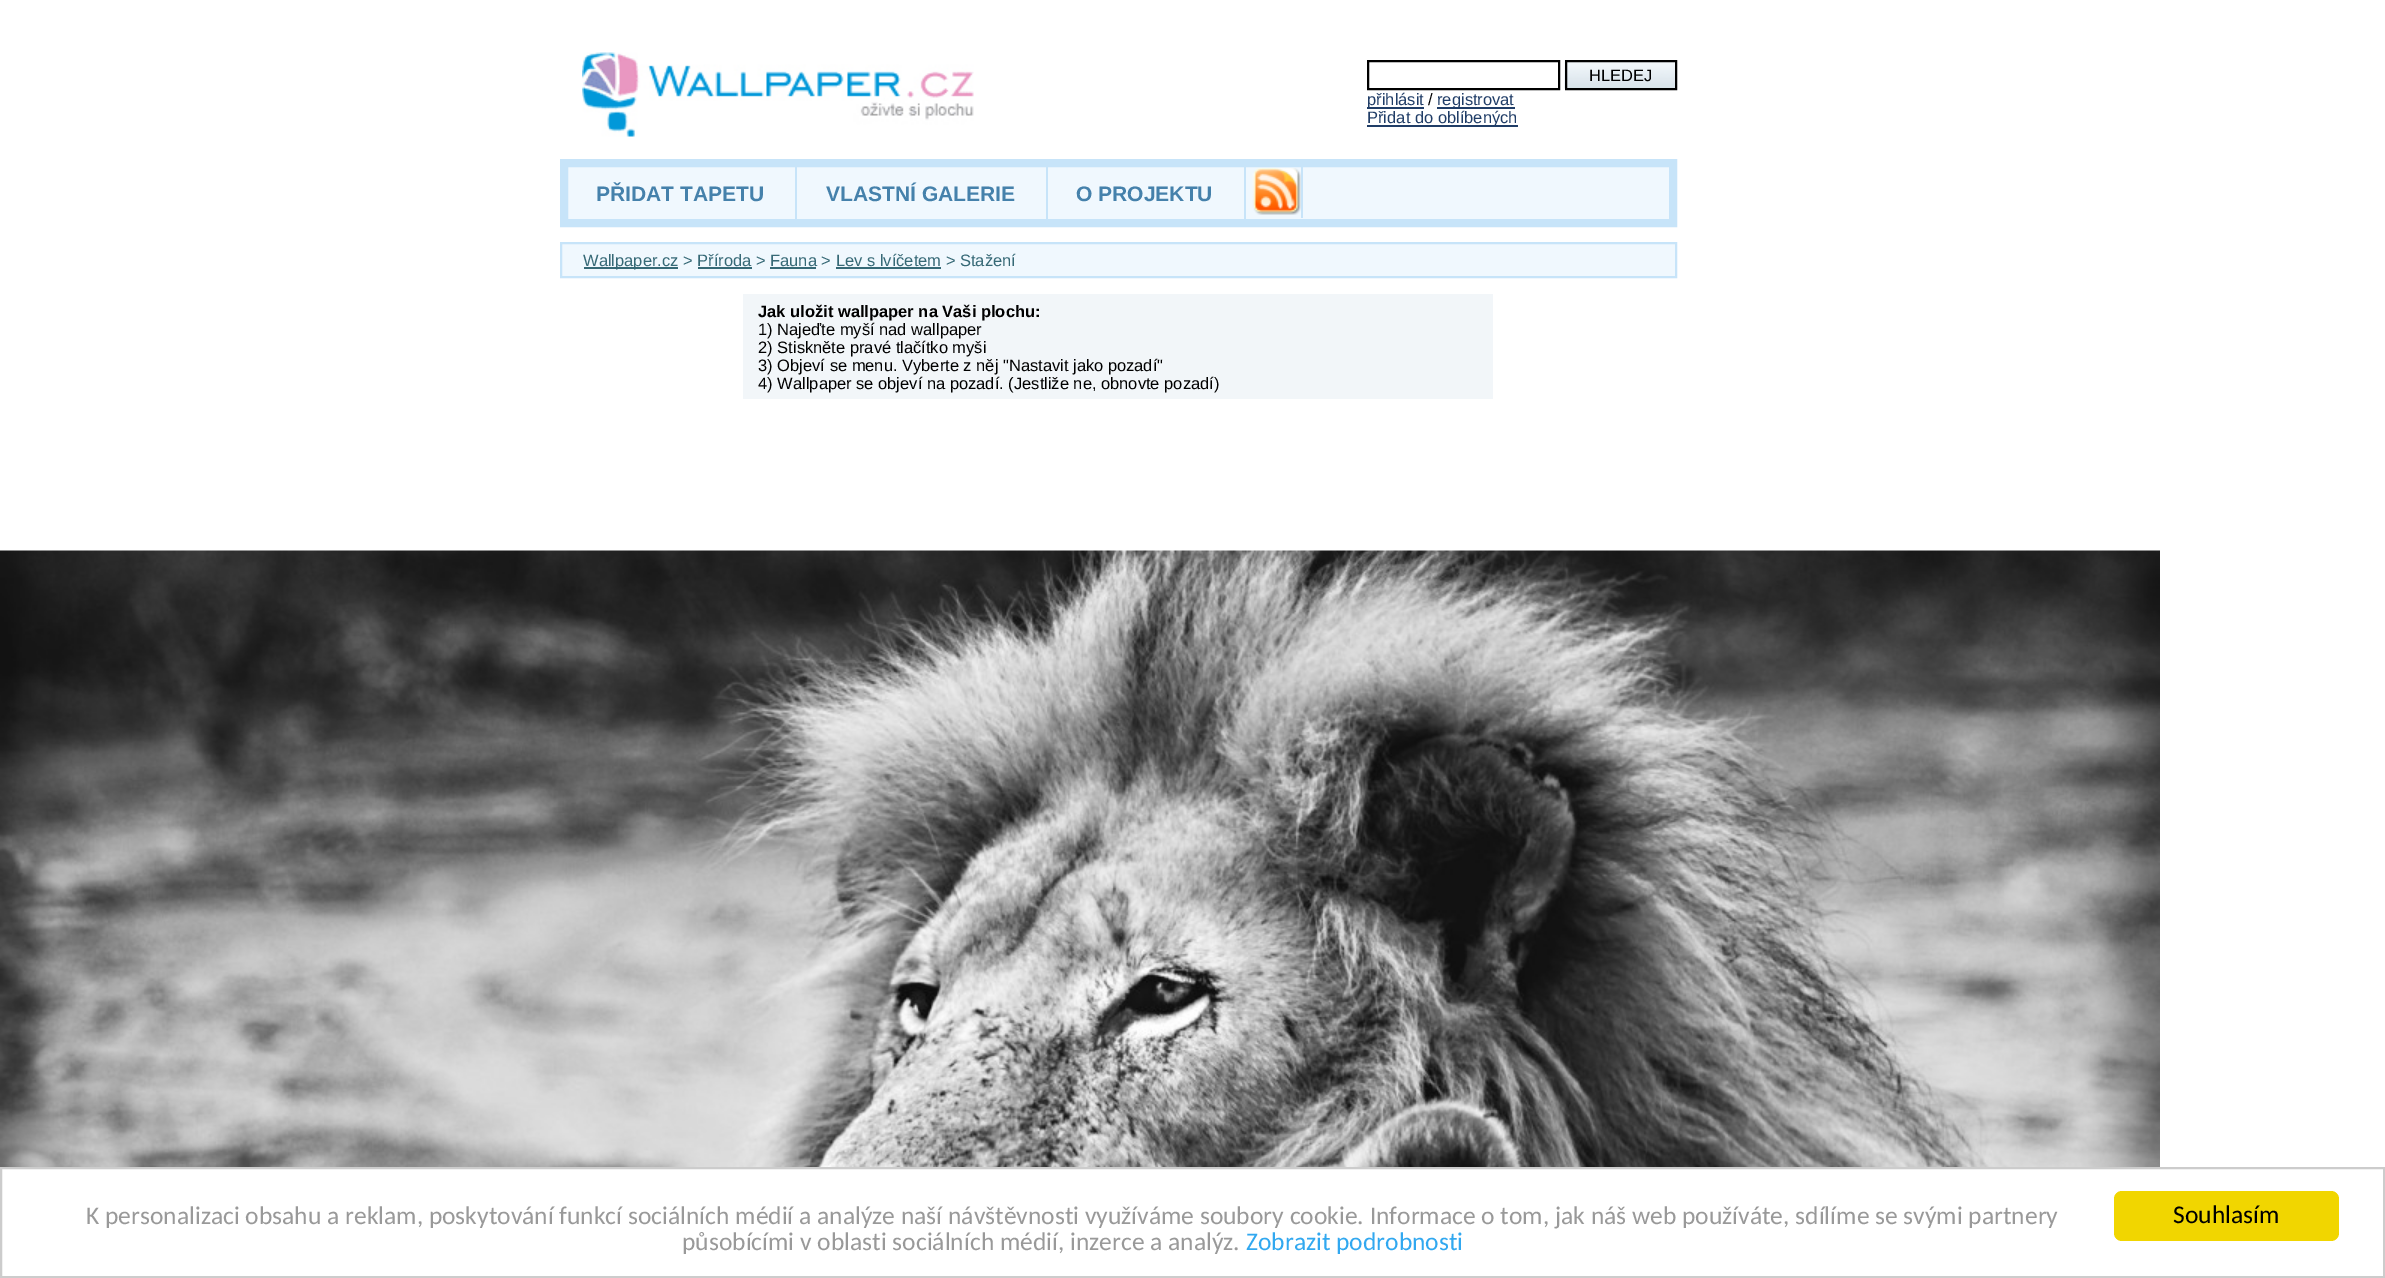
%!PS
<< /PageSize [2385 1278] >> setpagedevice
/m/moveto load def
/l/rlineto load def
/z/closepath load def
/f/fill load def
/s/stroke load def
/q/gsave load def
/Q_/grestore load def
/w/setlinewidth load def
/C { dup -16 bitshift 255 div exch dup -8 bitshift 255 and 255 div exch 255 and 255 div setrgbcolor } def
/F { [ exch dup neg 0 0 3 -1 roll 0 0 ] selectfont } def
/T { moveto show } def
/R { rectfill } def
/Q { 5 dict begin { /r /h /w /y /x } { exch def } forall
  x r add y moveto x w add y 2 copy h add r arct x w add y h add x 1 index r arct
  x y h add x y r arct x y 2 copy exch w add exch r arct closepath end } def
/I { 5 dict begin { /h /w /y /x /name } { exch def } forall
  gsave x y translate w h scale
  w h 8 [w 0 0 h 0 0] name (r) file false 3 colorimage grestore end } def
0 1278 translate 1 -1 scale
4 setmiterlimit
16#FFFFFF C
0 0 2385 1278 R
(1.rgb) 582 52 392 85 I
16#000000 C
2 w
1368 61 191 28 rectstroke
(2.rgb) 1564 60 111 29 I
1566 61 110 28 rectstroke
/LiberationSans-Regular 16.5 F
(HLEDEJ) 1589 81 T
16#203D67 C
1367 107 57 2 R
(přihlásit) 1367 105 T
16#000000 C
(/) 1428 105 T
16#203D67 C
1437 107 78 2 R
(registrovat) 1437 105 T
1367 125 151 2 R
(Přidat do oblíbených) 1367 123 T
16#F0F8FE C
564 163 m 1109 0 l 0 60 l -1109 0 l z q f Q_
16#C7E4F9 C
8 w
s
795 167 2 54 R
/LiberationSans-Bold 21 F
16#4581AB C
(PŘIDAT TAPETU) 596 201 T
16#C7E4F9 C
1046 167 2 54 R
16#4581AB C
(VLASTNÍ GALERIE) 826 201 T
16#C7E4F9 C
1244 167 2 54 R
16#4581AB C
(O PROJEKTU) 1076 201 T
16#C7E4F9 C
1301 167 2 51 R
(3.rgb) 1252 168 49 47 I
16#F0F8FE C
561 243 m 1115 0 l 0 34 l -1115 0 l z q f Q_
16#C7E4F9 C
2 w
s
16#366976 C
584 267 94 2 R
/LiberationSans-Regular 16.5 F
(Wallpaper.cz > Příroda > Fauna > Lev s lvíčetem > Stažení) 583 266 T
698 267 54 2 R
770 267 46 2 R
836 267 105 2 R
16#F2F6F9 C
743 294 750 105 R
/LiberationSans-Bold 16.5 F
16#000000 C
(Jak uložit wallpaper na Vaši plochu:) 758 317 T
/LiberationSans-Regular 16.5 F
(1\) Najeďte myší nad wallpaper) 758 335 T
(2\) Stiskněte pravé tlačítko myši) 758 353 T
(3\) Objeví se menu. Vyberte z něj "Nastavit jako pozadí") 758 371 T
(4\) Wallpaper se objeví na pozadí. \(Jestliže ne, obnovte pozadí\)) 758 389 T
(4.rgb) 0 550 2160 617 I
16#CCCCCC C
1 1168 2383 109 rectstroke
/Carlito-Regular 25.5 F
16#999999 C
(K personalizaci obsahu a reklam, poskytování funkcí sociálních médií a analýze naší návštěvnosti využíváme soubory cookie. Informace o tom, jak náš web používáte, sdílíme se svými partnery) 86 1224 T
(působícími v oblasti sociálních médií, inzerce a analýz.) 682 1250 T
16#31A8F0 C
(Zobrazit podrobnosti) 1246 1250 T
16#F1D600 C
2114 1191 225 50 8 Q f
16#000000 C
(Souhlasím) 2173 1223 T
showpage
